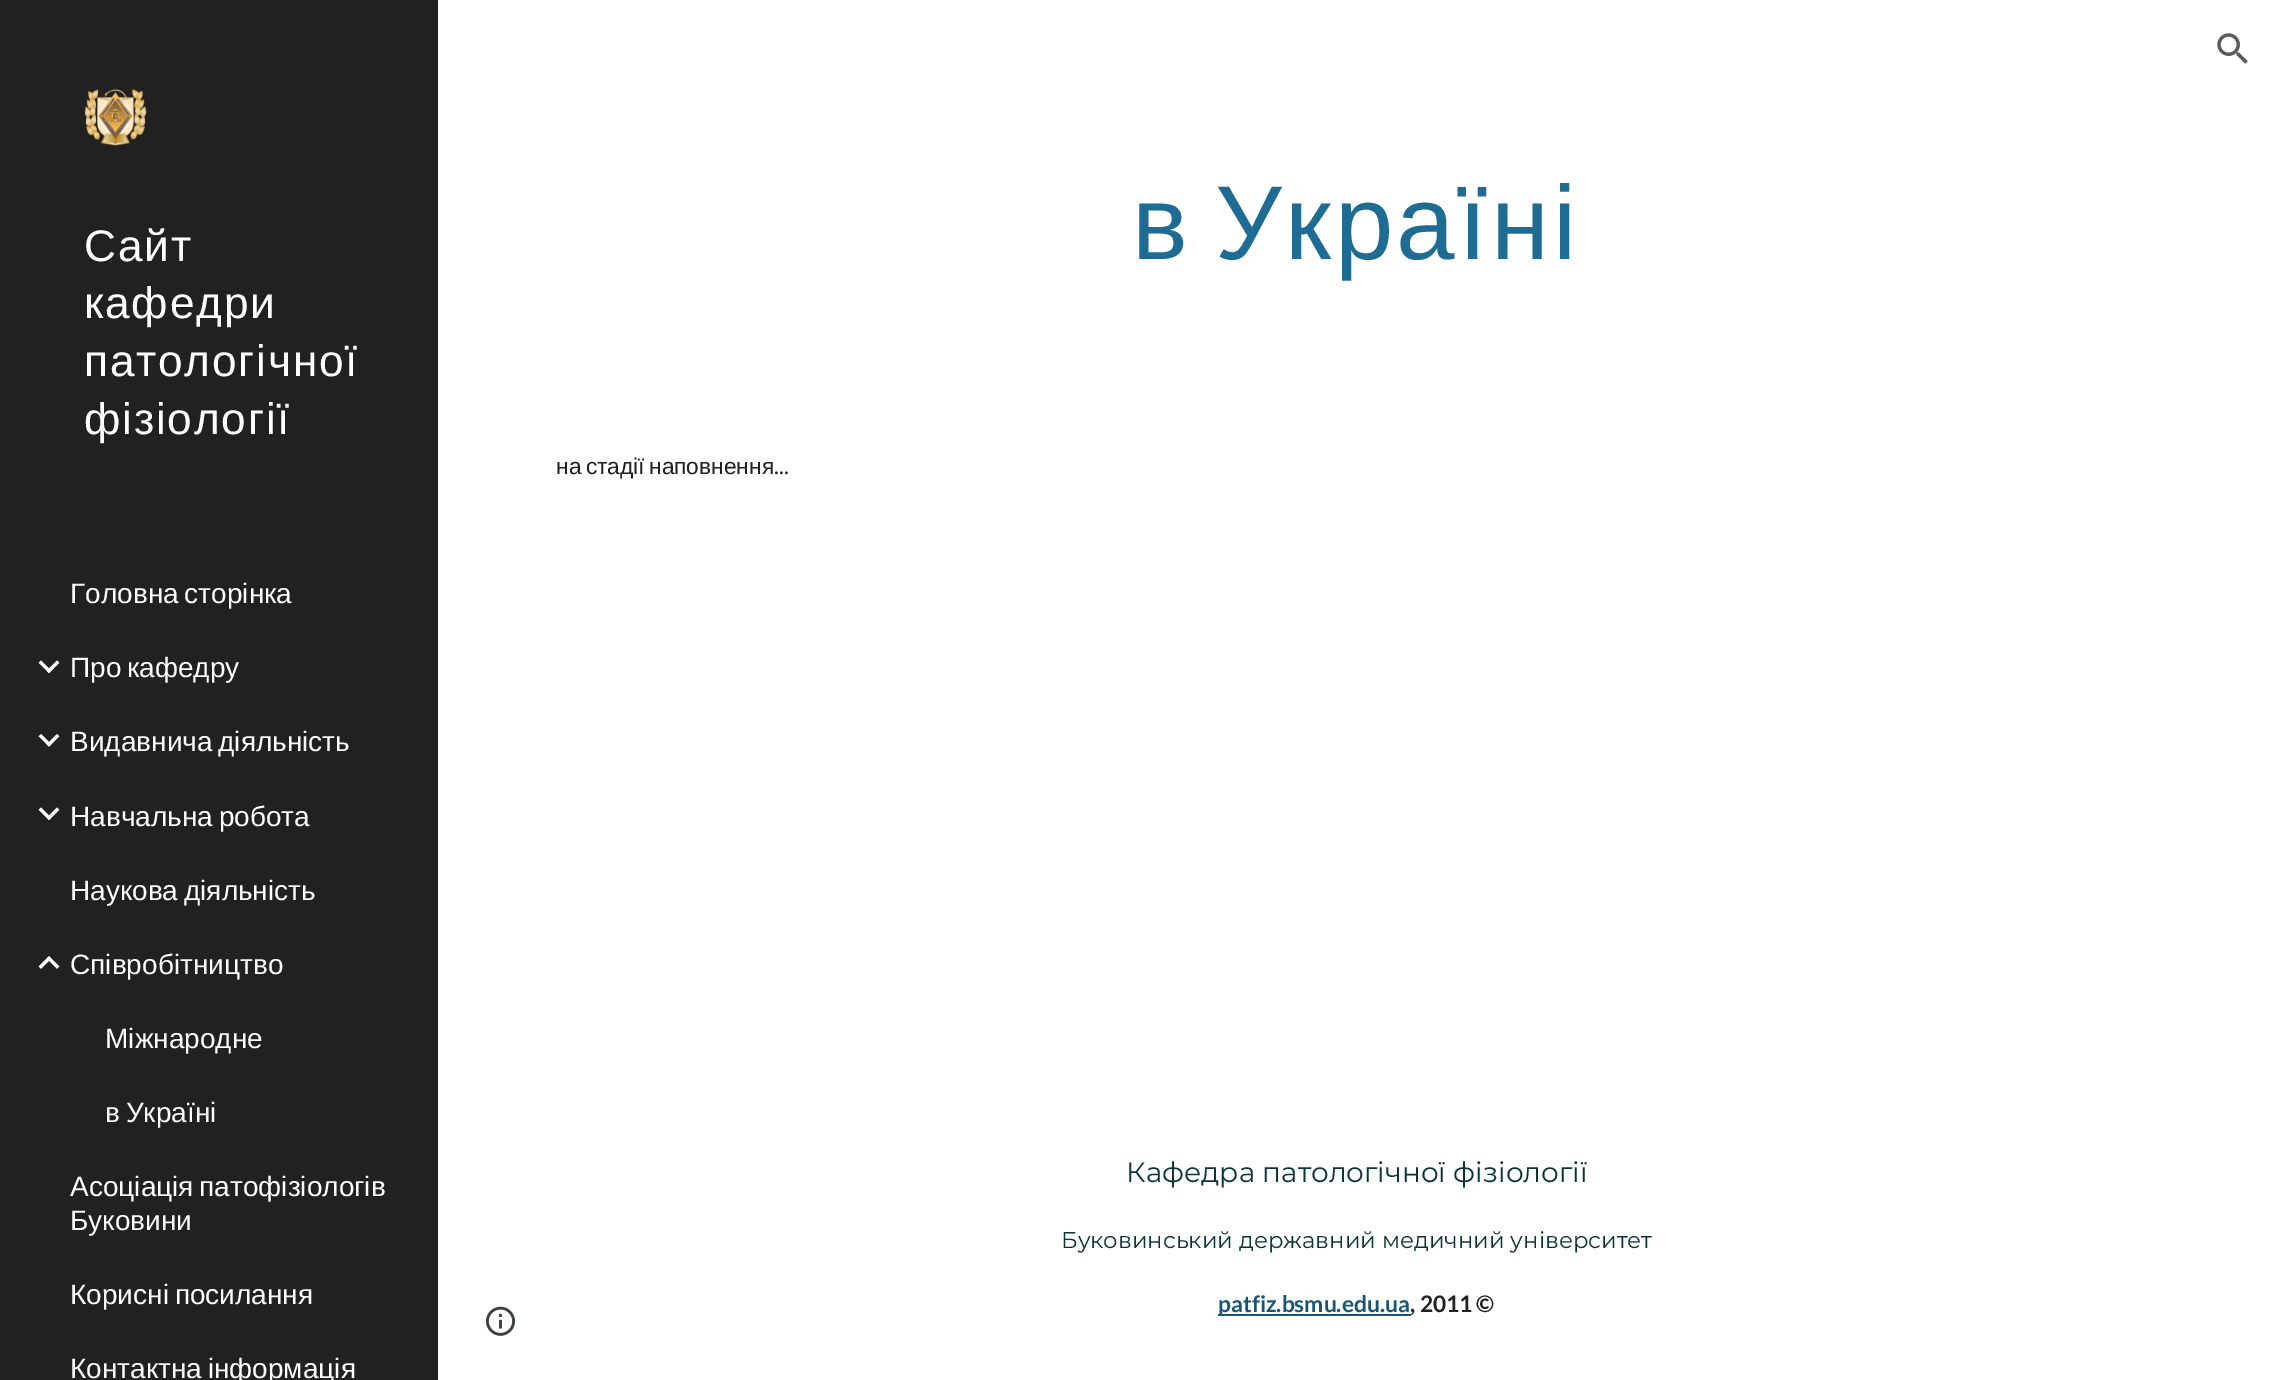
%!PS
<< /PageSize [2275 1380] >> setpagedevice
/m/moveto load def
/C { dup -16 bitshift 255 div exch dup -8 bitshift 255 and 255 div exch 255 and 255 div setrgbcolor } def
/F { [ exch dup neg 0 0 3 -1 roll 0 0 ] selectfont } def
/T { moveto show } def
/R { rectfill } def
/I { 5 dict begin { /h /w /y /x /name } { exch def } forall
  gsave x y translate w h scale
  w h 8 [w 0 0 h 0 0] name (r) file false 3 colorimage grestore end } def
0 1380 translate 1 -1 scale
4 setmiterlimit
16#FFFFFF C
0 0 2275 1380 R
(1.rgb) 2217 33 31 31 I
16#212121 C
0 0 438 1380 R
(2.rgb) 84 88 63 58 I
/LiberationSans-Regular 44.25 F
16#FFFFFF C
84 261 m 1.75 0 (Сайт) ashow
84 318 m 1.75 0 (кафедри) ashow
84 376 m 1.75 0 (патологічної) ashow
84 434 m 1.75 0 (фізіології) ashow
/LiberationSans-Regular 28 F
70 603 m -2 0 32 (Головна сторінка) widthshow
(3.rgb) 38 660 22 14 I
70 677 m -2 0 32 (Про кафедру) widthshow
(4.rgb) 38 734 22 13 I
70 751 m -2 0 32 (Видавнича діяльність) widthshow
(3.rgb) 38 807 22 14 I
70 826 m -2 0 32 (Навчальна робота) widthshow
70 900 m -2 0 32 (Наукова діяльність) widthshow
(5.rgb) 38 956 22 13 I
(Співробітництво) 70 974 T
(Міжнародне) 105 1048 T
105 1122 m -2 0 32 (в Україні) widthshow
70 1196 m -2 0 32 (Асоціація патофізіологів) widthshow
(Буковини) 70 1230 T
70 1304 m -2 0 32 (Корисні посилання) widthshow
70 1378 m -2 0 32 (Контактна інформація) widthshow
/LiberationSans-Regular 105 F
16#1E6C93 C
1132 259 m -9 0 32 3.5 0 (в Україні) awidthshow
/LiberationSans-Regular 22.75 F
16#212121 C
556 474 m -2 0 32 (на стадії наповнення) widthshow
/Lato-Regular 22.75 F
(...) 774 474 T
/Montserrat-Regular 28 F
16#0C343D C
(Кафедра патологічної фізіології) 1126 1182 T
/Montserrat-Regular 22.75 F
(Буковинський державний медичний університет) 1061 1248 T
16#185676 C
1218 1314 193 2 R
/Lato-Bold 22.75 F
(patfiz.bsmu.edu.ua) 1218 1312 T
16#212121 C
(, 2011) 1410 1312 T
(©) 1476 1312 T
(6.rgb) 485 1306 31 30 I
showpage
